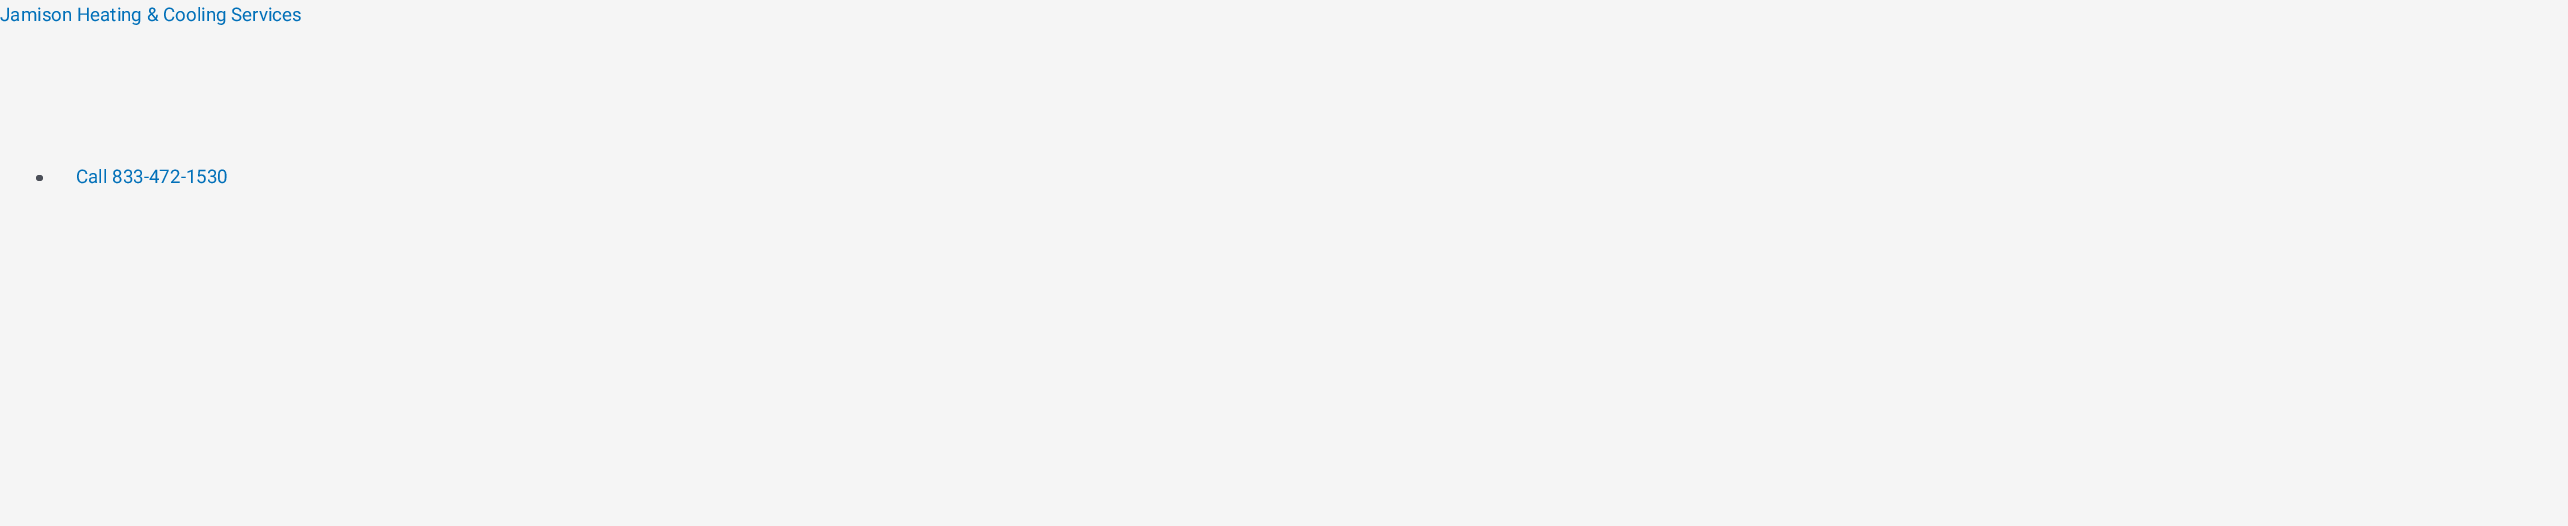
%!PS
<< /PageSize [2568 526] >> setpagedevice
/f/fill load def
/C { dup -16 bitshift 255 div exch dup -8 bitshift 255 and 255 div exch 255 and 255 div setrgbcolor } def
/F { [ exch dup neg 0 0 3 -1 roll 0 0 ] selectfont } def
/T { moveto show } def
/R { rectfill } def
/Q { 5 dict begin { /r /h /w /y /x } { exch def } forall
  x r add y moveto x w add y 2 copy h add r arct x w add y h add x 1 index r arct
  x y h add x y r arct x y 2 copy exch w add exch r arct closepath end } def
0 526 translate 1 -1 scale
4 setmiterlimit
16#F5F5F5 C
0 0 2568 526 R
/Roboto-Regular 18.75 F
16#0170B9 C
(Jamison Heating & Cooling Services) 0 21 T
16#4B4F58 C
36 175 7 6 3 Q f
16#0170B9 C
(Call 833-472-1530) 76 183 T
showpage
